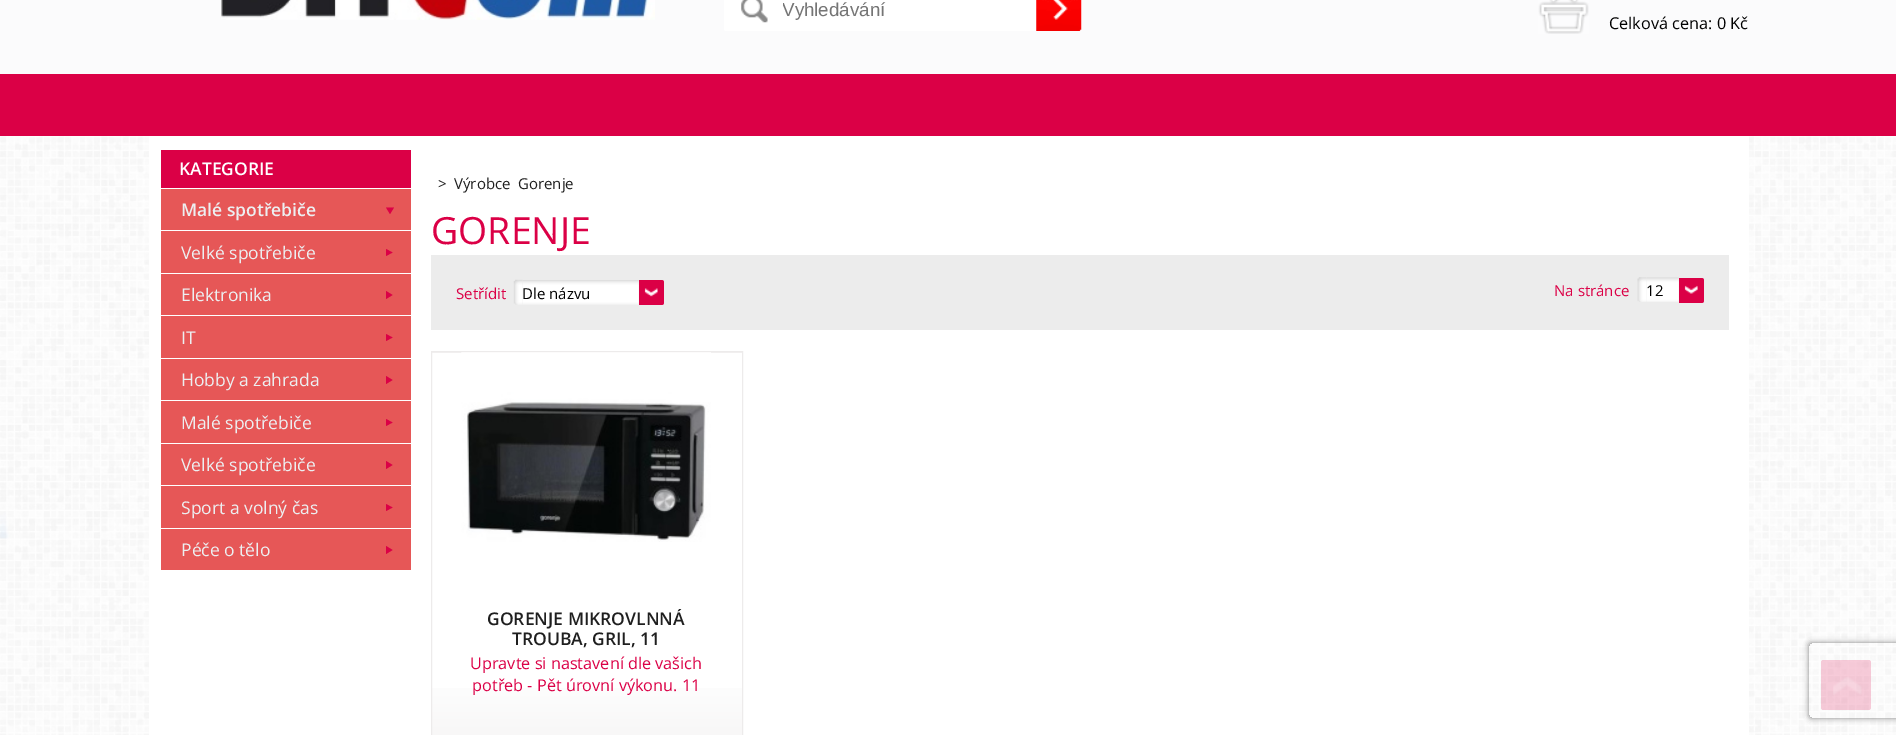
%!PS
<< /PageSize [1896 735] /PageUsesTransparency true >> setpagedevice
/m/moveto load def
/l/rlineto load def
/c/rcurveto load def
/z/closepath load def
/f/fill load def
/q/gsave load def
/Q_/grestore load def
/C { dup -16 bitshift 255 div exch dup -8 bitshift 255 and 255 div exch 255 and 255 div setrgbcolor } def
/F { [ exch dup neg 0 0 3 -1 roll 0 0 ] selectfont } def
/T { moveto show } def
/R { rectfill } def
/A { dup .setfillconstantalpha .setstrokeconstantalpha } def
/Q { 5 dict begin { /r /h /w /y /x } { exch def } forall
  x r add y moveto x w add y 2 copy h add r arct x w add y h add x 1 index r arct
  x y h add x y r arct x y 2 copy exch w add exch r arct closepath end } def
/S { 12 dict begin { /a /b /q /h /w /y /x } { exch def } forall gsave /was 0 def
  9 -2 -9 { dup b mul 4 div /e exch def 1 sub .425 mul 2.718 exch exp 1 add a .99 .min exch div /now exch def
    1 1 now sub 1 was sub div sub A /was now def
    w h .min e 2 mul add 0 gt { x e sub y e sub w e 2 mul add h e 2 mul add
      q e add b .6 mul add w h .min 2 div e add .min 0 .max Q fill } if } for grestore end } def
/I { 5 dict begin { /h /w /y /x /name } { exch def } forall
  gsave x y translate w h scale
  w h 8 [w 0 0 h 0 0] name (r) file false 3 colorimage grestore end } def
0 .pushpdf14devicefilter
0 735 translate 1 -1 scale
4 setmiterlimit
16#FFFFFF C
0 0 1896 735 R
q 0 0 m 1896 0 l 0 74 l -1896 0 l z clip newpath
<< /ShadingType 2 /ColorSpace /DeviceRGB /Coords [948 -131 948 74] /Extend [true true] /Function << /FunctionType 2 /Domain [0 1] /C0 [1 1 1] /C1 [.984 .984 .988] /N 1 >> >> shfill Q_
(1.rgb) 221 0 434 20 I
726.5 -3 m 309.5 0 l 0 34 l -309.5 0 l -1.5 0 -2.5 -1 -2.5 -2.5 c 0 -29 l 0 -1.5 1 -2.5 2.5 -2.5 c z f
(2.rgb) 741 0 27 23 I
q
783 0 253 20 rectclip
/LiberationSans-Regular 18.75 F
16#757575 C
(Vyhledávání) 782 16 T
Q_
(3.rgb) 1036 0 46 31 I
(4.rgb) 1538 0 51 34 I
/OpenSans-Regular 16.25 F
16#000000 C
(Celková cena: 0 Kč) 1609 29 T
16#DB0046 C
0 74 1896 62 R
(5.rgb) 0 136 1896 599 I
16#FFFFFF C
149 136 1600 599 R
16#DB0046 C
161 150 250 38 R
/OpenSans-SemiBold 17.5 F
16#FFFFFF C
(KATEGORIE) 179 175 T
16#E65757 C
161 189 250 41 R
16#ECEFF1 C
(Malé spotřebiče) 181 216 T
16#DB0046 C
386 207.5 m 8 0 l -4 6.5 l z f
16#E65757 C
161 231 250 42 R
/OpenSans-Regular 17.5 F
16#ECEFF1 C
(Velké spotřebiče) 181 259 T
16#DB0046 C
386 256 m 0 -7 l 6.5 3.5 l z f
16#E65757 C
161 274 250 41 R
16#ECEFF1 C
(Elektronika) 181 301 T
16#DB0046 C
386 299 m 0 -8 l 6.5 4 l z f
16#E65757 C
161 316 250 42 R
16#ECEFF1 C
(IT) 181 344 T
16#DB0046 C
386 341 m 0 -7 l 6.5 3.5 l z f
16#E65757 C
161 359 250 41 R
16#ECEFF1 C
(Hobby a zahrada) 181 386 T
16#DB0046 C
386 384 m 0 -8 l 6.5 4 l z f
16#E65757 C
161 401 250 42 R
16#ECEFF1 C
(Malé spotřebiče) 181 429 T
16#DB0046 C
386 426 m 0 -7 l 6.5 3.5 l z f
16#E65757 C
161 444 250 41 R
16#ECEFF1 C
(Velké spotřebiče) 181 471 T
16#DB0046 C
386 469 m 0 -8 l 6.5 4 l z f
16#E65757 C
161 486 250 42 R
16#ECEFF1 C
(Sport a volný čas) 181 514 T
16#DB0046 C
386 511 m 0 -7 l 6.5 3.5 l z f
16#E65757 C
161 529 250 41 R
16#ECEFF1 C
(Péče o tělo) 181 556 T
16#DB0046 C
386 554 m 0 -8 l 6.5 4 l z f
/OpenSans-Regular 15 F
16#1F1F1F C
(>) 438 189 T
(Výrobce) 454 189 T
(Gorenje) 518 189 T
/OpenSans-Regular 37.5 F
16#DB0046 C
(GORENJE) 431 244 T
16#ECECEC C
431 255 1298 75 R
/OpenSans-Regular 15 F
16#DB0046 C
(Setřídit) 456 299 T
(7.rgb) 522 280 117 25 I
(6.rgb) 513 279 10 26 I
16#000000 C
(Dle názvu) 522 299 T
16#DB0046 C
639 280 m 22.5 0 l 1.5 0 2.5 1 2.5 2.5 c 0 20 l 0 1.5 -1 2.5 -2.5 2.5 c -22.5 0 l z f
(8.rgb) 644 288 14 9 I
(Na stránce) 1554 296 T
(9.rgb) 1637 277 9 25 I
(10.rgb) 1646 277 33 25 I
16#000000 C
(12) 1646 296 T
16#DB0046 C
1679 278 m 22.5 0 l 1.5 0 2.5 1 2.5 2.5 c 0 20 l 0 1.5 -1 2.5 -2.5 2.5 c -22.5 0 l z f
(11.rgb) 1684 285 14 9 I
q 431 352 m 312 0 l 0 1 l -312 0 l z clip newpath
<< /ShadingType 2 /ColorSpace /DeviceRGB /Coords [587 -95 587 353] /Extend [true true] /Function << /FunctionType 3 /Domain [0 1] /Functions [<< /FunctionType 2 /Domain [0 1] /C0 [1 1 1] /C1 [1 1 1] /N 1 >> << /FunctionType 2 /Domain [0 1] /C0 [1 1 1] /C1 [.949 .941 .941] /N 1 >>] /Bounds [.7] /Encode [0 1 0 1] >> >> shfill Q_
q 432 688 m 310 0 l 0 47 l -310 0 l z clip newpath
<< /ShadingType 2 /ColorSpace /DeviceRGB /Coords [587 353 587 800] /Extend [true true] /Function << /FunctionType 3 /Domain [0 1] /Functions [<< /FunctionType 2 /Domain [0 1] /C0 [1 1 1] /C1 [1 1 1] /N 1 >> << /FunctionType 2 /Domain [0 1] /C0 [1 1 1] /C1 [.949 .941 .941] /N 1 >>] /Bounds [.7] /Encode [0 1 0 1] >> >> shfill Q_
16#EDEBEB C
431.5 351.5 311 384 rectstroke
(12.rgb) 461 352 250 190 I
q
454 609 266 40 rectclip
/OpenSans-SemiBold 17.5 F
16#1F1F1F C
(GORENJE MIKROVLNNÁ) 487 625 T
Q_
/OpenSans-SemiBold 17.5 F
16#1F1F1F C
(TROUBA, GRIL, 11) 512 645 T
/OpenSans-Regular 16.25 F
16#DB0046 C
(Upravte si nastavení dle vašich) 470 669 T
(potřeb - Pět úrovní výkonu. 11) 472 691 T
q
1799 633 m 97 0 l 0 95 l -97 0 l z 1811.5 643 m 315 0 l 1.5 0 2.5 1 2.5 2.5 c 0 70 l 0 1.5 -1 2.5 -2.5 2.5 c -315 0 l -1.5 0 -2.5 -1 -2.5 -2.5 c 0 -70 l 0 -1.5 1 -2.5 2.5 -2.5 c z eoclip newpath
16#808080 C
1809 643 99 75 2.5 3 1 S
Q_
0.2 A
1821 660 50 50 2.5 Q f
1 A
(13.rgb) 1833 677 29 18 I
.poppdf14devicefilter showpage
